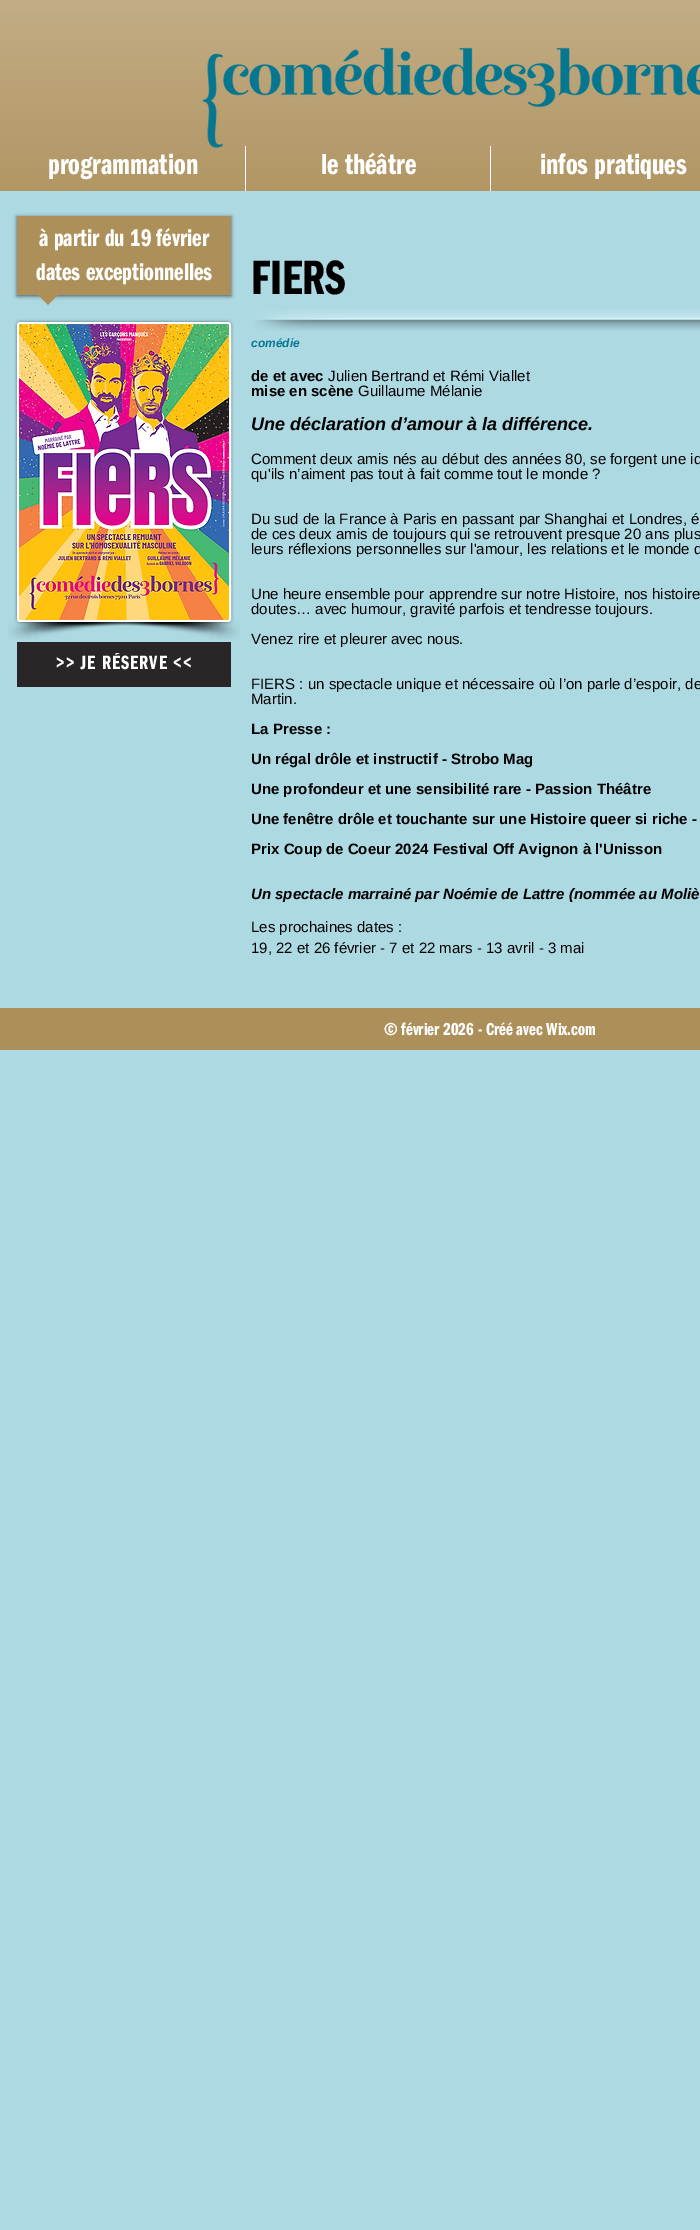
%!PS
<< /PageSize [700 2230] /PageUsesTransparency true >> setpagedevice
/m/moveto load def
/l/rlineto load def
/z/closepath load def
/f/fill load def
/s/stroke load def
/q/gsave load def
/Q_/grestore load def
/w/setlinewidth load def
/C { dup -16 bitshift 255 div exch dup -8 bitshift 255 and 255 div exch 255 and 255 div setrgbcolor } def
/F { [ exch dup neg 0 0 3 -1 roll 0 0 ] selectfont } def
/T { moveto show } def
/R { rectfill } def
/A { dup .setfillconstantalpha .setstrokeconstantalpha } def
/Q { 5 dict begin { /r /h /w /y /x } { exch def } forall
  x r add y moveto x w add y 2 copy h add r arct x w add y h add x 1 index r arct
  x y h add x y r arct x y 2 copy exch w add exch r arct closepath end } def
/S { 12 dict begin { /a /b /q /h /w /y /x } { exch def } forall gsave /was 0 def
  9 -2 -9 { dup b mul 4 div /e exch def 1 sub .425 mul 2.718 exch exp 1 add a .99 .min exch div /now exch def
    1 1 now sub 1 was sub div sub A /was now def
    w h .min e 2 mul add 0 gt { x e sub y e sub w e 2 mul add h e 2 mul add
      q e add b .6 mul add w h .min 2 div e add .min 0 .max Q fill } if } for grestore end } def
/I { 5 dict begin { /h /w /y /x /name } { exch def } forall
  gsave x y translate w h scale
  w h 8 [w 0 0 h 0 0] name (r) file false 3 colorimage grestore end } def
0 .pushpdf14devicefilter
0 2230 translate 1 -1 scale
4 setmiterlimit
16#ADD9E3 C
0 0 700 2230 R
16#AC8F59 C
0 0 700 191 R
(1.rgb) 0 0 700 191 I
(2.rgb) 202 47 498 101 I
/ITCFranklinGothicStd-SemiBold 30 F
16#FFFFFF C
(programmation) 48 174 T
245 146 1 45 R
(le théâtre) 321 174 T
490 146 1 45 R
(infos pratiques) 540 174 T
16#000000 C
17 217 214 79 0 2 .6 S
16#AC8F59 C
17 216 214 79 R
/ITCFranklinGothicStd-SemiBold 25 F
16#FFFFFF C
(à partir du 19 février) 39 246 T
(dates exceptionnelles) 36 280 T
16#AC8F59 C
38 295 m 20 0 l -10 10 l z f
/ITCFranklinGothicStd-SemiBold 50 F
16#000000 C
(FIERS) 251 294 T
17 322 214 300 3 1.5 .5 S
16#FFFFFF C
18 323 212 298 2 Q q f Q_
2 w
s
(3.rgb) 19 324 210 296 I
(4.rgb) 8 622 154 18 I
(5.rgb) 105 622 135 18 I
(6.rgb) 254 309 97 22 I
(7.rgb) 351 309 349 22 I
16#282626 C
17 642 214 45 R
/ITCFranklinGothicStd-SemiBold 20 F
16#FFFFFF C
56 669 m 1 0 (>>) ashow
q
56 653 136 24 rectclip
80 669 m 1 0 (JE RÉSERVE) ashow
Q_
173 669 m 1 0 (<<) ashow
/LiberationSans-BoldItalic 12 F
16#067790 C
(comédie) 251 347 T
/LiberationSans-Bold 15 F
16#000000 C
(de et avec) 251 381 T
/LiberationSans-Regular 15 F
(Julien Bertrand et Rémi Viallet) 328 381 T
/LiberationSans-Bold 15 F
(mise en scène) 251 396 T
/LiberationSans-Regular 15 F
(Guillaume Mélanie) 358 396 T
/LiberationSans-BoldItalic 18 F
(Une déclaration d’amour à la différence.) 251 430 T
/LiberationSans-Regular 15 F
(Comment deux amis nés au début des années 80, se forgent une id) 251 464 T
(qu'ils n’aiment pas tout à fait comme tout le monde ?) 251 479 T
(Du sud de la France à Paris en passant par Shanghai et Londres, é) 251 524 T
(de ces deux amis de toujours qui se retrouvent presque 20 ans plus) 251 539 T
(leurs réflexions personnelles sur l'amour, les relations et le monde q) 251 554 T
(Une heure ensemble pour apprendre sur notre Histoire, nos histoire) 251 599 T
(doutes… avec humour, gravité parfois et tendresse toujours.) 251 614 T
(Venez rire et pleurer avec nous.) 251 644 T
(FIERS : un spectacle unique et nécessaire où l’on parle d’espoir, de) 251 689 T
(Martin.) 251 704 T
/LiberationSans-Bold 15 F
(La Presse :) 251 734 T
(Un régal drôle et instructif - Strobo Mag) 251 764 T
(Une profondeur et une sensibilité rare - Passion Théâtre) 251 794 T
(Une fenêtre drôle et touchante sur une Histoire queer si riche -) 251 824 T
(Prix Coup de Coeur 2024 Festival Off Avignon à l'Unisson) 251 854 T
/LiberationSans-BoldItalic 15 F
(Un spectacle marrainé par Noémie de Lattre \(nommée au Moliè) 251 899 T
/LiberationSans-Regular 15 F
(Les prochaines dates :) 251 932 T
(19, 22 et 26 février - 7 et 22 mars - 13 avril - 3 mai) 251 953 T
16#AC8F59 C
0 1008 700 42 R
/ITCFranklinGothicStd-SemiBold 18 F
16#FFFFFF C
(© février 2026 - Créé avec Wix.com) 384 1035 T
.poppdf14devicefilter showpage
